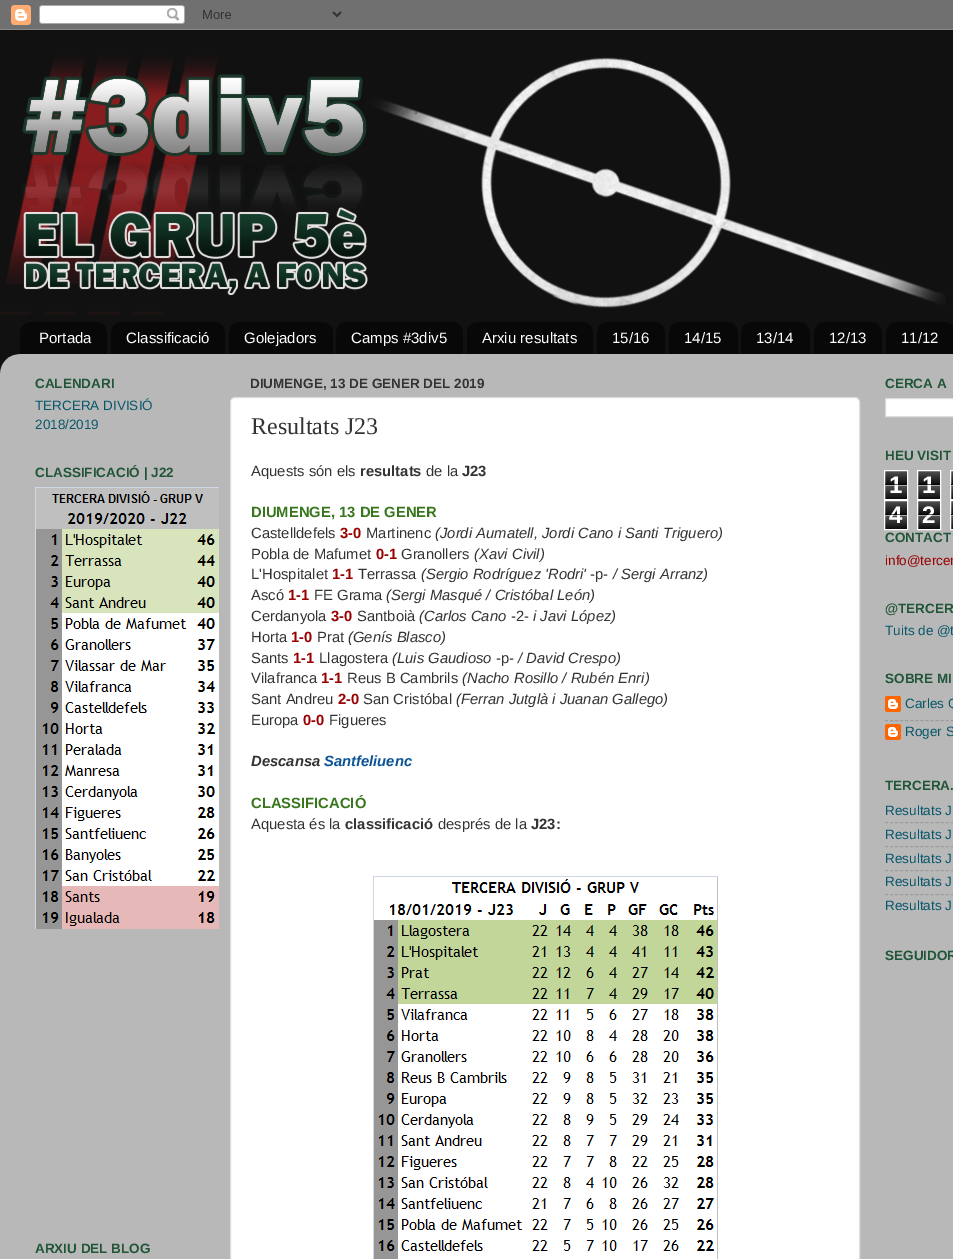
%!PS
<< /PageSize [953 1259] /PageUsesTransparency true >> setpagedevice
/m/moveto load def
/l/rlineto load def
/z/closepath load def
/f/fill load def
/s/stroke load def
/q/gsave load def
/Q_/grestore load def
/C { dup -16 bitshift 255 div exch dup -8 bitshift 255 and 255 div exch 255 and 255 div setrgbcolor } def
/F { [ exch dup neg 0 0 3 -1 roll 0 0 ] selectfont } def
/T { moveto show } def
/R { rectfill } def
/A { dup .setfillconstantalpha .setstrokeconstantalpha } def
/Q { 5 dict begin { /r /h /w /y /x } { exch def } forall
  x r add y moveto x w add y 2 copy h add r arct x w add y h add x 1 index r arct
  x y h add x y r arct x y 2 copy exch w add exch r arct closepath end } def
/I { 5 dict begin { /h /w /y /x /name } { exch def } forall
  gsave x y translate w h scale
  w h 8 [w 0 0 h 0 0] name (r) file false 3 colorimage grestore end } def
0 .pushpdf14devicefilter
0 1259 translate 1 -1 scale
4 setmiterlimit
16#111111 C
0 0 953 1259 R
(1.rgb) 0 0 953 30 I
(2.rgb) 0 55 946 260 I
(3.rgb) 20 322 87 32 I
/LiberationSans-Regular 15 F
16#FFFFFF C
(Portada) 39 343 T
(4.rgb) 111 322 114 32 I
(Classificació) 126 343 T
(5.rgb) 229 322 104 32 I
(Golejadors) 244 343 T
(6.rgb) 336 322 127 32 I
(Camps #3div5) 351 343 T
(7.rgb) 467 322 126 32 I
(Arxiu resultats) 482 343 T
(8.rgb) 597 322 68 32 I
(15/16) 612 343 T
(9.rgb) 669 322 69 32 I
(14/15) 684 343 T
(9.rgb) 741 322 69 32 I
(13/14) 756 343 T
(8.rgb) 814 322 68 32 I
(12/13) 829 343 T
(10.rgb) 886 322 67 32 I
(11/12) 901 343 T
(11.rgb) 0 354 953 905 I
/LiberationSans-Bold 13.5 F
16#205537 C
(CALENDARI) 35 388 T
/LiberationSans-Regular 13.5 F
16#07566A C
(TERCERA DIVISIÓ) 35 410 T
(2018/2019) 35 429 T
/LiberationSans-Bold 13.5 F
16#205537 C
(CLASSIFICACIÓ | J22) 35 477 T
(12.rgb) 35 487 184 442 I
(ARXIU DEL BLOG) 35 1253 T
16#333333 C
(DIUMENGE, 13 DE GENER DEL 2019) 250 388 T
16#FFFFFF C
230.5 397.5 629 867 4.5 Q q f Q_
16#DDDDDD C
s
/LiberationSerif-Regular 24 F
16#333333 C
(Resultats J23) 251 434 T
/LiberationSans-Regular 14.8 F
(Aquests són els) 251 476 T
/LiberationSans-Bold 14.8 F
(resultats) 360 476 T
/LiberationSans-Regular 14.8 F
(de la) 426 476 T
/LiberationSans-Bold 14.8 F
(J23) 462 476 T
16#38761D C
(DIUMENGE, 13 DE GENER) 251 517 T
/LiberationSans-Regular 14.8 F
16#333333 C
(Castelldefels) 251 538 T
/LiberationSans-Bold 14.8 F
16#990000 C
(3-0) 340 538 T
/LiberationSans-Regular 14.8 F
16#333333 C
(Martinenc) 366 538 T
/LiberationSans-Italic 14.8 F
(\(Jordi Aumatell, Jordi Cano i Santi Triguero\)) 435 538 T
/LiberationSans-Regular 14.8 F
(Pobla de Mafumet) 251 559 T
/LiberationSans-Bold 14.8 F
16#990000 C
(0-1) 376 559 T
/LiberationSans-Regular 14.8 F
16#333333 C
(Granollers) 401 559 T
/LiberationSans-Italic 14.8 F
(\(Xavi Civil\)) 474 559 T
/LiberationSans-Regular 14.8 F
(L'Hospitalet) 251 579 T
/LiberationSans-Bold 14.8 F
16#990000 C
(1-1) 332 579 T
/LiberationSans-Regular 14.8 F
16#333333 C
(Terrassa) 358 579 T
/LiberationSans-Italic 14.8 F
(\(Sergio Rodríguez 'Rodri') 421 579 T
/LiberationSans-Regular 14.8 F
(-p-) 590 579 T
/LiberationSans-Italic 14.8 F
(/ Sergi Arranz\)) 613 579 T
/LiberationSans-Regular 14.8 F
(Ascó) 251 600 T
/LiberationSans-Bold 14.8 F
16#990000 C
(1-1) 288 600 T
/LiberationSans-Regular 14.8 F
16#333333 C
(FE Grama) 314 600 T
/LiberationSans-Italic 14.8 F
(\(Sergi Masqué / Cristóbal León\)) 386 600 T
/LiberationSans-Regular 14.8 F
(Cerdanyola) 251 621 T
/LiberationSans-Bold 14.8 F
16#990000 C
(3-0) 331 621 T
/LiberationSans-Regular 14.8 F
16#333333 C
(Santboià) 357 621 T
/LiberationSans-Italic 14.8 F
(\(Carlos Cano) 419 621 T
/LiberationSans-Regular 14.8 F
(-2-) 511 621 T
/LiberationSans-Italic 14.8 F
(i Javi López\)) 533 621 T
/LiberationSans-Regular 14.8 F
(Horta) 251 642 T
/LiberationSans-Bold 14.8 F
16#990000 C
(1-0) 291 642 T
/LiberationSans-Regular 14.8 F
16#333333 C
(Prat) 317 642 T
/LiberationSans-Italic 14.8 F
(\(Genís Blasco\)) 348 642 T
/LiberationSans-Regular 14.8 F
(Sants) 251 663 T
/LiberationSans-Bold 14.8 F
16#990000 C
(1-1) 293 663 T
/LiberationSans-Regular 14.8 F
16#333333 C
(Llagostera) 319 663 T
/LiberationSans-Italic 14.8 F
(\(Luis Gaudioso) 392 663 T
/LiberationSans-Regular 14.8 F
(-p-) 496 663 T
/LiberationSans-Italic 14.8 F
(/ David Crespo\)) 518 663 T
/LiberationSans-Regular 14.8 F
(Vilafranca) 251 683 T
/LiberationSans-Bold 14.8 F
16#990000 C
(1-1) 321 683 T
/LiberationSans-Regular 14.8 F
16#333333 C
(Reus B Cambrils) 347 683 T
/LiberationSans-Italic 14.8 F
(\(Nacho Rosillo / Rubén Enri\)) 462 683 T
/LiberationSans-Regular 14.8 F
(Sant Andreu) 251 704 T
/LiberationSans-Bold 14.8 F
16#990000 C
(2-0) 338 704 T
/LiberationSans-Regular 14.8 F
16#333333 C
(San Cristóbal) 363 704 T
/LiberationSans-Italic 14.8 F
(\(Ferran Jutglà i Juanan Gallego\)) 456 704 T
/LiberationSans-Regular 14.8 F
(Europa) 251 725 T
/LiberationSans-Bold 14.8 F
16#990000 C
(0-0) 303 725 T
/LiberationSans-Regular 14.8 F
16#333333 C
(Figueres) 329 725 T
/LiberationSans-BoldItalic 14.8 F
(Descansa) 251 766 T
16#0B5394 C
(Santfeliuenc) 324 766 T
/LiberationSans-Bold 14.8 F
16#38761D C
(CLASSIFICACIÓ) 251 808 T
/LiberationSans-Regular 14.8 F
16#333333 C
(Aquesta és la) 251 829 T
/LiberationSans-Bold 14.8 F
(classificació) 345 829 T
/LiberationSans-Regular 14.8 F
(després de la) 438 829 T
/LiberationSans-Bold 14.8 F
(J23:) 531 829 T
(13.rgb) 373 876 345 383 I
/LiberationSans-Bold 13.5 F
16#205537 C
(CERCA A) 885 388 T
16#FFFFFF C
885.5 398.5 m 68 0 l 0 18 l -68 0 l z q f Q_
16#DDDDDD C
s
16#205537 C
(HEU VISIT) 885 460 T
(14.rgb) 885 471 22 28 I
16#FFFFFF C
884.5 470.5 23 29 rectstroke
/LiberationSans-Bold 24 F
(1) 889 493 T
0.65 A
16#000000 C
885 484 22 1 R
16#FFFFFF C
885 485 22 1 R
1 A
(14.rgb) 918 471 22 28 I
917.5 470.5 23 29 rectstroke
(1) 922 493 T
0.65 A
16#000000 C
918 484 22 1 R
16#FFFFFF C
918 485 22 1 R
1 A
(15.rgb) 951 471 2 28 I
950.5 470.5 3 29 rectstroke
16#040404 C
951 484 2 1 R
16#A8A8A8 C
951 485 2 1 R
(14.rgb) 885 501 22 28 I
16#FFFFFF C
884.5 500.5 23 29 rectstroke
(4) 889 523 T
0.65 A
16#000000 C
885 514 22 1 R
16#FFFFFF C
885 515 22 1 R
1 A
(14.rgb) 918 501 22 28 I
917.5 500.5 23 29 rectstroke
(2) 922 523 T
0.65 A
16#000000 C
918 514 22 1 R
16#FFFFFF C
918 515 22 1 R
1 A
(15.rgb) 951 501 2 28 I
950.5 500.5 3 29 rectstroke
16#040404 C
951 514 2 1 R
16#A8A8A8 C
951 515 2 1 R
/LiberationSans-Bold 13.5 F
16#205537 C
(CONTACT) 885 542 T
/LiberationSans-Regular 13.5 F
16#990000 C
(info@tercer) 885 565 T
/LiberationSans-Bold 13.5 F
16#205537 C
(@TERCER) 885 613 T
/LiberationSans-Regular 13.5 F
16#07566A C
(Tuits de @t) 885 635 T
/LiberationSans-Bold 13.5 F
16#205537 C
(SOBRE MI) 885 683 T
(16.rgb) 885 696 16 16 I
/LiberationSans-Regular 13.5 F
16#07566A C
(Carles G) 905 708 T
16#9C9C9C C
[3 2.06] 0 setdash
885 720.5 m 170 0 l s
(16.rgb) 885 724 16 16 I
16#07566A C
(Roger S) 905 736 T
/LiberationSans-Bold 13.5 F
16#205537 C
(TERCERA.) 885 790 T
/LiberationSans-Regular 13.5 F
16#07566A C
(Resultats J) 885 815 T
16#9C9C9C C
885 822.5 m 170 0 l s
16#07566A C
(Resultats J) 885 839 T
16#9C9C9C C
885 846.5 m 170 0 l s
16#07566A C
(Resultats J) 885 863 T
16#9C9C9C C
885 870.5 m 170 0 l s
16#07566A C
(Resultats J) 885 886 T
16#9C9C9C C
885 894.5 m 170 0 l s
16#07566A C
(Resultats J) 885 910 T
/LiberationSans-Bold 13.5 F
16#205537 C
(SEGUIDOR) 885 960 T
.poppdf14devicefilter showpage
